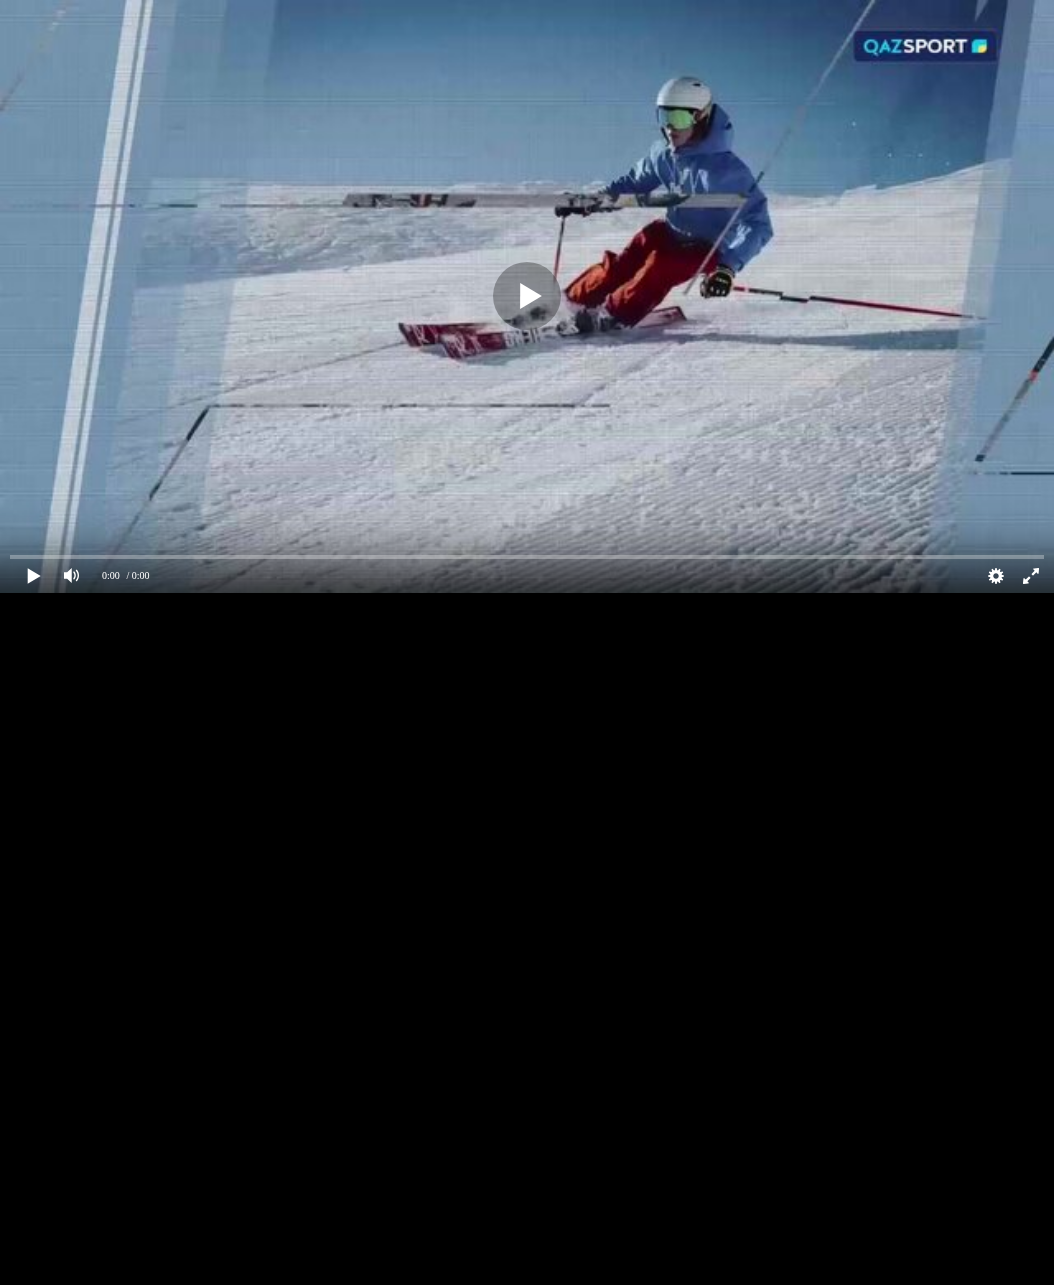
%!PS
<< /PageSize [1054 1285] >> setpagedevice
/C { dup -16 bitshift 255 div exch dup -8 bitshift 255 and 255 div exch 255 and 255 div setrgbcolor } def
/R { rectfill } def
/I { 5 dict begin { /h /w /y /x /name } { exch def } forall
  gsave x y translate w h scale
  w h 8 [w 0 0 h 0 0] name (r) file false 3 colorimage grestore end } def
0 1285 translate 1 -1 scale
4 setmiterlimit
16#FFFFFF C
0 0 1054 1285 R
(1.rgb) 0 0 1054 1285 I
showpage
